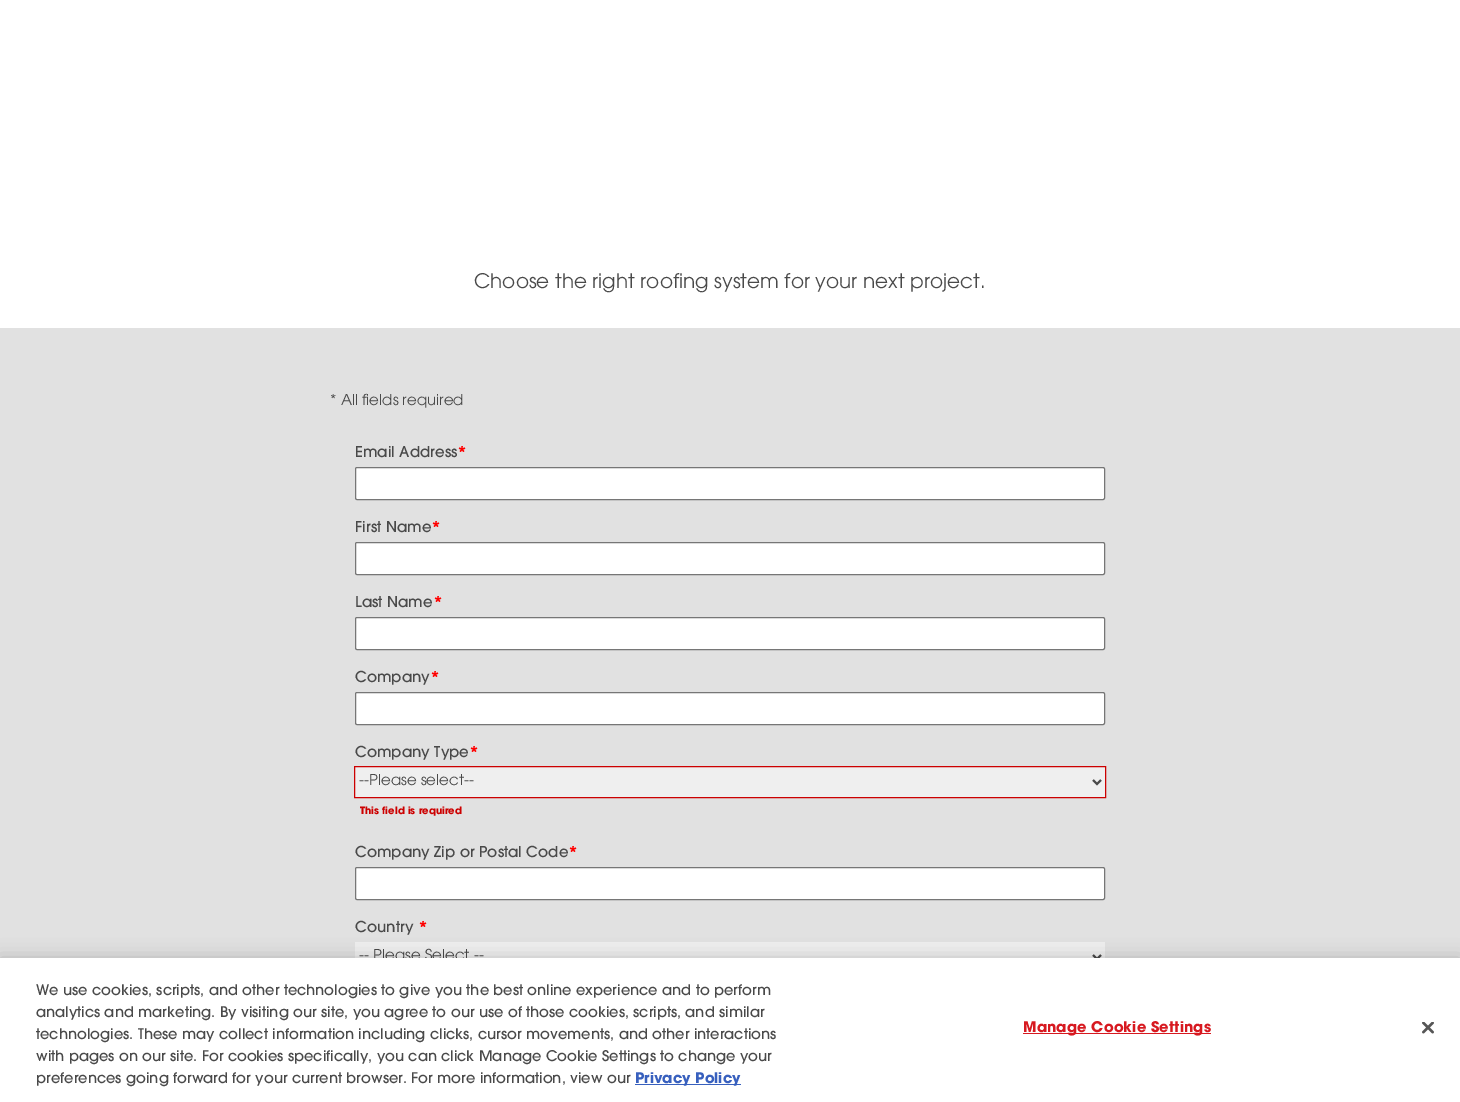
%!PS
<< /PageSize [1460 1102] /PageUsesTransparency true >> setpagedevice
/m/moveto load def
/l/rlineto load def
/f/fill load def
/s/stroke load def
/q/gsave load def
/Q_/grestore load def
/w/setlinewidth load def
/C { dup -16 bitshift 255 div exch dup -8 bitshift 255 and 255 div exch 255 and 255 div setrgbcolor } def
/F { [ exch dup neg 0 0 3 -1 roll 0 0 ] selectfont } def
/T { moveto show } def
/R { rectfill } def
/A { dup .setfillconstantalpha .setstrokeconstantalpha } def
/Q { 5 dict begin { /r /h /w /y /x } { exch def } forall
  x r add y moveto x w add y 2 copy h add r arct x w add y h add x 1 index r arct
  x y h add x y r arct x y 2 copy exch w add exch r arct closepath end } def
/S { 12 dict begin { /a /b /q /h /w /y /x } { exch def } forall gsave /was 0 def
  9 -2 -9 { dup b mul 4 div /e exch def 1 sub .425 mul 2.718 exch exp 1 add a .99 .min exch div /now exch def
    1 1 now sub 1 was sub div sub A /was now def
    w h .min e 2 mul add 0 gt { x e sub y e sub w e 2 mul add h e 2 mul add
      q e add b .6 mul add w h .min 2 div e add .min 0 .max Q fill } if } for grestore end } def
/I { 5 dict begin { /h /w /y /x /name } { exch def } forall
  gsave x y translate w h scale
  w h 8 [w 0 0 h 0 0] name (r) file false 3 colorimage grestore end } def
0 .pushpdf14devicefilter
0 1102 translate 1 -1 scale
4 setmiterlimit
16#FFFFFF C
0 0 1460 1102 R
/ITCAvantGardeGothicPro-Light 20 F
16#494949 C
(Choose the right roofing system for your next project.) 474 288 T
16#E1E1E1 C
0 328 1460 630 R
/ITCAvantGardeGothicPro-Light 15 F
16#494949 C
(* All fields required) 330 405 T
/ITCAvantGardeGothicPro-Medium 15 F
(Email Address) 355 457 T
/ITCAvantGardeGothicPro-Bold 15 F
16#FF0000 C
(*) 457 457 T
16#FFFFFF C
355.5 467.5 749 32 1.5 Q q f Q_
16#767676 C
s
/ITCAvantGardeGothicPro-Medium 15 F
16#494949 C
(First Name) 355 532 T
/ITCAvantGardeGothicPro-Bold 15 F
16#FF0000 C
(*) 431 532 T
16#FFFFFF C
355.5 542.5 749 32 1.5 Q q f Q_
16#767676 C
s
/ITCAvantGardeGothicPro-Medium 15 F
16#494949 C
(Last Name) 355 607 T
/ITCAvantGardeGothicPro-Bold 15 F
16#FF0000 C
(*) 433 607 T
16#FFFFFF C
355.5 617.5 749 32 1.5 Q q f Q_
16#767676 C
s
/ITCAvantGardeGothicPro-Medium 15 F
16#494949 C
(Company) 355 682 T
/ITCAvantGardeGothicPro-Bold 15 F
16#FF0000 C
(*) 430 682 T
16#FFFFFF C
355.5 692.5 749 32 1.5 Q q f Q_
16#767676 C
s
/ITCAvantGardeGothicPro-Medium 15 F
16#494949 C
(Company Type) 355 757 T
/ITCAvantGardeGothicPro-Bold 15 F
16#FF0000 C
(*) 469 757 T
16#EFEFEF C
355 767 750 30 R
16#494949 C
2 w
1093 780 m 4 4 l 4 -4 l s
16#CC0000 C
1 w
354.5 766.5 751 31 rectstroke
/ITCAvantGardeGothicPro-Light 15 F
16#494949 C
(--Please select--) 359 785 T
/ITCAvantGardeGothicPro-Bold 10 F
16#CC0000 C
(This field is required) 360 814 T
/ITCAvantGardeGothicPro-Medium 15 F
16#494949 C
(Company Zip or Postal Code) 355 857 T
/ITCAvantGardeGothicPro-Bold 15 F
16#FF0000 C
(*) 568 857 T
16#FFFFFF C
355.5 867.5 749 32 1.5 Q q f Q_
16#767676 C
s
/ITCAvantGardeGothicPro-Medium 15 F
16#494949 C
(Country) 355 932 T
/ITCAvantGardeGothicPro-Bold 15 F
16#FF0000 C
(*) 418 932 T
16#EFEFEF C
355 942 750 16 R
16#494949 C
2 w
1093 955 m 4 4 l 4 -4 l s
/ITCAvantGardeGothicPro-Light 15 F
(-- Please Select --) 359 960 T
16#000000 C
0 958 1460 144 0 9 .2 S
16#FFFFFF C
0 958 1460 144 R
/ITCAvantGardeGothicPro-Medium 14.63 F
16#494949 C
(We use cookies, scripts, and other technologies to give you the best online experience and to perform) 36 995 T
(analytics and marketing. By visiting our site, you agree to our use of those cookies, scripts, and similar) 36 1017 T
(technologies. These may collect information including clicks, cursor movements, and other interactions) 36 1039 T
(with pages on our site. For cookies specifically, you can click Manage Cookie Settings to change your) 36 1061 T
(preferences going forward for your current browser. For more information, view our) 36 1083 T
16#3860BE C
635 1084 106 1 R
/ITCAvantGardeGothicPro-Bold 14.63 F
(Privacy Policy) 635 1083 T
16#D71920 C
1023 1033 188 1 R
1023 1032 m .15 0 (Manage Cookie Settings) ashow
(1.rgb) 1422 1022 12 12 I
.poppdf14devicefilter showpage
